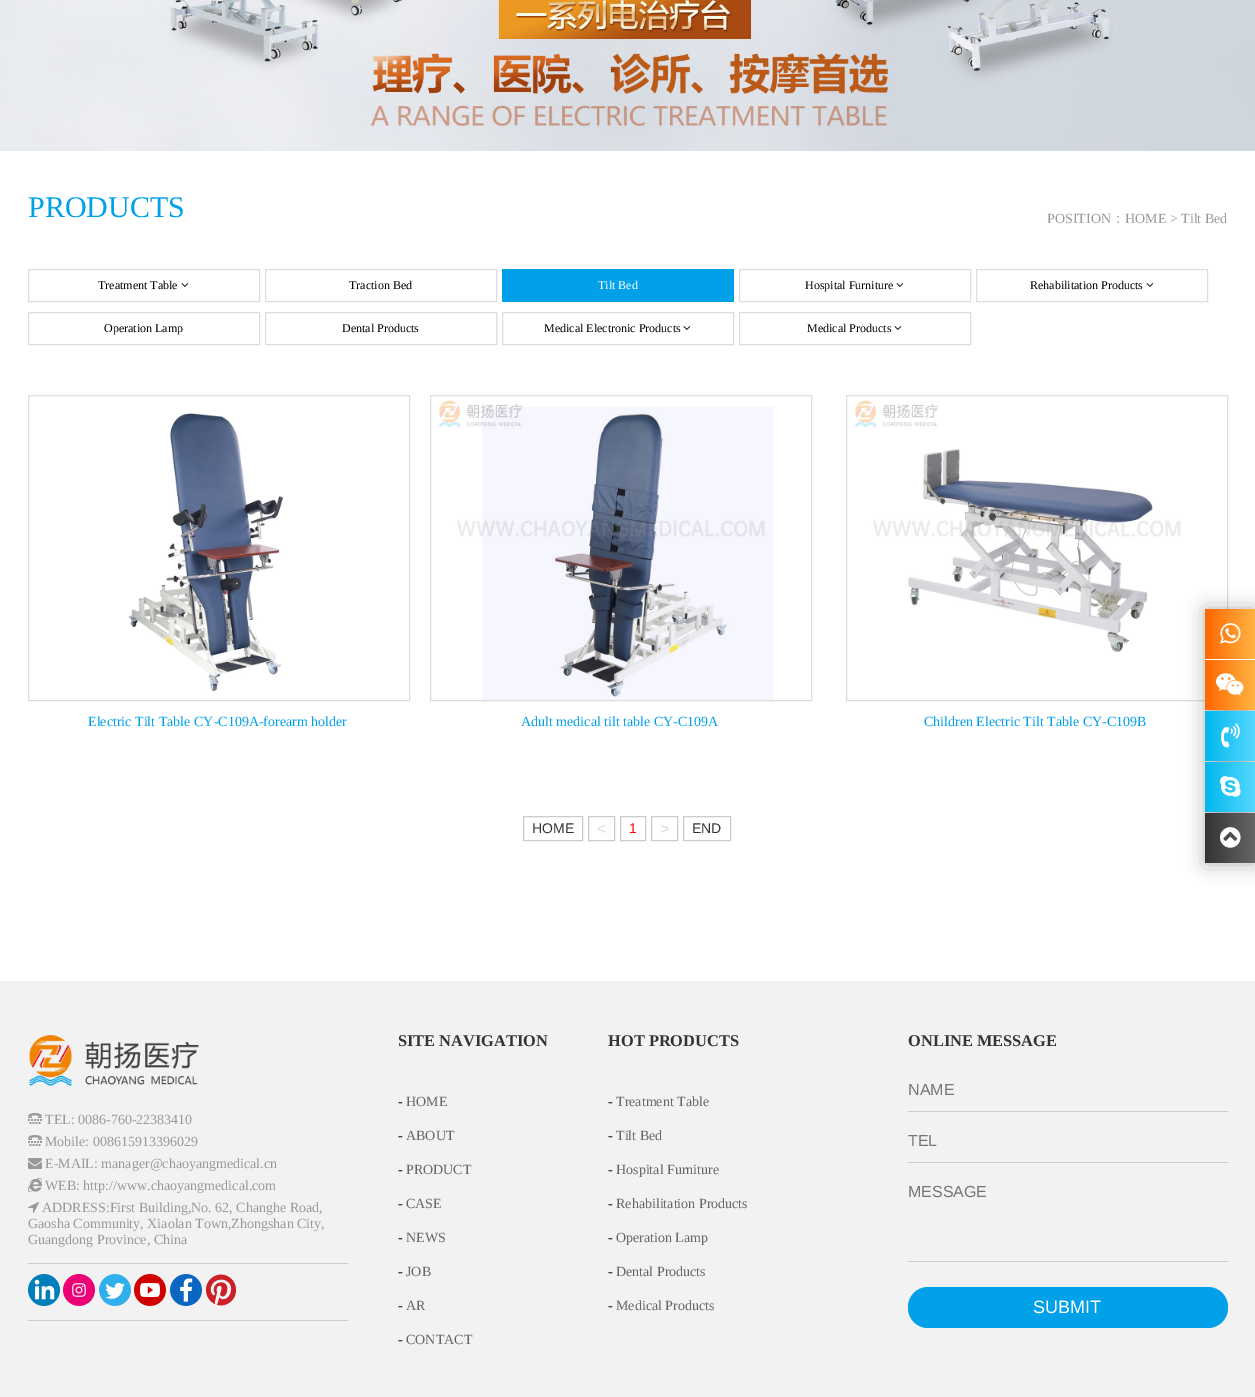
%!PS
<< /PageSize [1255 1397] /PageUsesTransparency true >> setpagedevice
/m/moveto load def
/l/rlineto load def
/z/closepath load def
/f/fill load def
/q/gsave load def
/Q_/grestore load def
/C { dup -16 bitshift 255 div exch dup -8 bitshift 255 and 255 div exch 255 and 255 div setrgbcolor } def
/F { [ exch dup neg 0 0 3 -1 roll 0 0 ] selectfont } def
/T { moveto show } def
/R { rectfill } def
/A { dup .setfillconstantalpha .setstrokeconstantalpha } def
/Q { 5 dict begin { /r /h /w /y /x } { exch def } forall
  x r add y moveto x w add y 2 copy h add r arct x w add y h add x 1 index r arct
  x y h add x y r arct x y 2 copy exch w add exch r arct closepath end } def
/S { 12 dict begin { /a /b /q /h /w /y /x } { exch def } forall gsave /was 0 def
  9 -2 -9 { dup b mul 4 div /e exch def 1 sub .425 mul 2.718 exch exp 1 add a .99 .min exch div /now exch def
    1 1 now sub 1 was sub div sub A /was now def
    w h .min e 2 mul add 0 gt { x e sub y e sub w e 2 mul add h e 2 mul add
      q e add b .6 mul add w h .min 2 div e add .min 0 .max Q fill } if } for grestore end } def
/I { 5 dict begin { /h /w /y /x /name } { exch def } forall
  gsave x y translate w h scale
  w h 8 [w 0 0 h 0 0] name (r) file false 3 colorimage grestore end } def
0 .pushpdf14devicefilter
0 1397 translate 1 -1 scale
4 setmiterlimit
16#FFFFFF C
0 0 1255 1397 R
(1.rgb) 0 0 1255 151 I
/LiberationSerif-Regular 30 F
16#00A1E9 C
(PRODUCTS) 28 217 T
/LiberationSerif-Regular 14 F
16#999999 C
(POSITION) 1047 223 T
/WenQuanYiZenHei-Medium 14 F
(：) 1111 223 T
/LiberationSerif-Regular 14 F
(HOME > Tilt Bed) 1125 223 T
16#DDDDDD C
28.5 269.5 231 32 rectstroke
/LiberationSerif-Regular 12 F
16#000000 C
(Treatment Table) 98 289 T
(2.rgb) 181 283 8 4 I
16#DDDDDD C
265.5 269.5 231 32 rectstroke
16#000000 C
(Traction Bed) 349 289 T
16#00A1E9 C
502 269 232 33 R
16#FFFFFF C
(Tilt Bed) 598 289 T
16#DDDDDD C
739.5 269.5 231 32 rectstroke
16#000000 C
(Hospital Furniture) 805 289 T
(2.rgb) 896 283 8 4 I
16#DDDDDD C
976.5 269.5 231 32 rectstroke
16#000000 C
(Rehabilitation Products) 1030 289 T
(2.rgb) 1146 283 8 4 I
16#DDDDDD C
28.5 312.5 231 32 rectstroke
16#000000 C
(Operation Lamp) 104 332 T
16#DDDDDD C
265.5 312.5 231 32 rectstroke
16#000000 C
(Dental Products) 342 332 T
16#DDDDDD C
502.5 312.5 231 32 rectstroke
16#000000 C
(Medical Electronic Products) 544 332 T
(2.rgb) 683 326 8 4 I
16#DDDDDD C
739.5 312.5 231 32 rectstroke
16#000000 C
(Medical Products) 807 332 T
(2.rgb) 894 326 8 4 I
16#DDDDDD C
28.5 395.5 381 305 rectstroke
(3.rgb) 128 413 155 278 I
/LiberationSerif-Regular 14 F
16#00A1E9 C
(Electric Tilt Table CY-C109A-forearm holder) 88 726 T
16#DDDDDD C
430.5 395.5 381 305 rectstroke
(4.rgb) 439 400 335 300 I
16#00A1E9 C
(Adult medical tilt table CY-C109A) 521 726 T
16#DDDDDD C
846.5 395.5 381 305 rectstroke
(5.rgb) 855 400 326 253 I
16#00A1E9 C
(Children Electric Tilt Table CY-C109B) 924 726 T
16#CCCCCC C
523.5 816.5 59 24 rectstroke
/LiberationSans-Regular 14 F
16#333333 C
(HOME) 532 833 T
16#CCCCCC C
588.5 816.5 26 24 rectstroke
/LiberationSans-Bold 16 F
16#E5E5E5 C
(<) 597 834 T
16#CCCCCC C
620.5 816.5 25 24 rectstroke
/LiberationSans-Regular 14 F
16#FF0000 C
(1) 629 833 T
16#CCCCCC C
651.5 816.5 26 24 rectstroke
/LiberationSans-Bold 16 F
16#E5E5E5 C
(>) 660 834 T
16#CCCCCC C
683.5 816.5 47 24 rectstroke
/LiberationSans-Regular 14 F
16#333333 C
(END) 692 833 T
16#000000 C
1205 609 50 255 0 10 .3 S
16#FFFFFF C
1205 659 50 1 R
q 1205 609 m 50 0 l 0 50 l -50 0 l z clip newpath
<< /ShadingType 2 /ColorSpace /DeviceRGB /Coords [1205 634 1255 634] /Extend [true true] /Function << /FunctionType 2 /Domain [0 1] /C0 [1 .4 0] /C1 [1 .706 .263] /N 1 >> >> shfill Q_
(6.rgb) 1220 623 21 21 I
q 1205 660 m 50 0 l 0 50 l -50 0 l z clip newpath
<< /ShadingType 2 /ColorSpace /DeviceRGB /Coords [1205 685 1255 685] /Extend [true true] /Function << /FunctionType 2 /Domain [0 1] /C0 [1 .4 0] /C1 [1 .706 .263] /N 1 >> >> shfill Q_
(7.rgb) 1216 673 28 23 I
q 1205 711 m 50 0 l 0 50 l -50 0 l z clip newpath
<< /ShadingType 2 /ColorSpace /DeviceRGB /Coords [1205 736 1255 736] /Extend [true true] /Function << /FunctionType 2 /Domain [0 1] /C0 [0 .718 .933] /C1 [.333 .847 1] /N 1 >> >> shfill Q_
(8.rgb) 1221 723 19 25 I
q 1205 762 m 50 0 l 0 50 l -50 0 l z clip newpath
<< /ShadingType 2 /ColorSpace /DeviceRGB /Coords [1205 787 1255 787] /Extend [true true] /Function << /FunctionType 2 /Domain [0 1] /C0 [0 .718 .933] /C1 [.333 .847 1] /N 1 >> >> shfill Q_
(9.rgb) 1220 776 21 21 I
q 1205 813 m 50 0 l 0 50 l -50 0 l z clip newpath
<< /ShadingType 2 /ColorSpace /DeviceRGB /Coords [1205 838 1255 838] /Extend [true true] /Function << /FunctionType 2 /Domain [0 1] /C0 [.2 .2 .2] /C1 [.4 .4 .4] /N 1 >> >> shfill Q_
(10.rgb) 1220 827 21 21 I
16#F2F2F2 C
0 981 1255 416 R
(11.rgb) 29 1035 170 51 I
(12.rgb) 28 1113 14 11 I
/LiberationSerif-Regular 14 F
16#999999 C
(TEL: 0086-760-22383410) 45 1124 T
(12.rgb) 28 1135 14 11 I
(Mobile: 008615913396029) 45 1146 T
(13.rgb) 28 1158 14 11 I
(E-MAIL: manager@chaoyangmedical.cn) 45 1168 T
(14.rgb) 28 1178 14 14 I
(WEB: http://www.chaoyangmedical.com) 45 1190 T
(15.rgb) 28 1202 11 11 I
(ADDRESS:First Building,No. 62, Changhe Road,) 42 1212 T
(Gaosha Community, Xiaolan Town,Zhongshan City,) 28 1228 T
(Guangdong Province, China) 28 1244 T
16#CCCCCC C
28 1263 320 1 R
28 1320 320 1 R
(16.rgb) 28 1274 32 32 I
(17.rgb) 63 1274 32 32 I
(18.rgb) 99 1274 32 32 I
(19.rgb) 134 1274 32 32 I
(20.rgb) 170 1274 32 32 I
(21.rgb) 205 1274 32 32 I
/LiberationSerif-Bold 16.4 F
16#333333 C
(SITE NAVIGATION) 398 1046 T
/LiberationSerif-Regular 14 F
16#000000 C
(-) 398 1106 T
16#666666 C
(HOME) 406 1106 T
16#000000 C
(-) 398 1140 T
16#666666 C
(ABOUT) 406 1140 T
16#000000 C
(-) 398 1174 T
16#666666 C
(PRODUCT) 406 1174 T
16#000000 C
(-) 398 1208 T
16#666666 C
(CASE) 406 1208 T
16#000000 C
(-) 398 1242 T
16#666666 C
(NEWS) 406 1242 T
16#000000 C
(-) 398 1276 T
16#666666 C
(JOB) 406 1276 T
16#000000 C
(-) 398 1310 T
16#666666 C
(AR) 406 1310 T
16#000000 C
(-) 398 1344 T
16#666666 C
(CONTACT) 406 1344 T
/LiberationSerif-Bold 16.4 F
16#333333 C
(HOT PRODUCTS) 608 1046 T
/LiberationSerif-Regular 14 F
16#000000 C
(-) 608 1106 T
16#666666 C
(Treatment Table) 616 1106 T
16#000000 C
(-) 608 1140 T
16#666666 C
(Tilt Bed) 616 1140 T
16#000000 C
(-) 608 1174 T
16#666666 C
(Hospital Furniture) 616 1174 T
16#000000 C
(-) 608 1208 T
16#666666 C
(Rehabilitation Products) 616 1208 T
16#000000 C
(-) 608 1242 T
16#666666 C
(Operation Lamp) 616 1242 T
16#000000 C
(-) 608 1276 T
16#666666 C
(Dental Products) 616 1276 T
16#000000 C
(-) 608 1310 T
16#666666 C
(Medical Products) 616 1310 T
/LiberationSerif-Bold 16.4 F
16#333333 C
(ONLINE MESSAGE) 908 1046 T
16#CCCCCC C
908 1111 320 1 R
/LiberationSans-Regular 16 F
16#757575 C
(NAME) 908 1095 T
16#CCCCCC C
908 1162 320 1 R
16#757575 C
(TEL) 908 1146 T
16#CCCCCC C
908 1261 320 1 R
16#757575 C
(MESSAGE) 908 1197 T
16#00A1E9 C
908 1287 320 41 20 Q f
/LiberationSans-Regular 18 F
16#FFFFFF C
(SUBMIT) 1033 1313 T
.poppdf14devicefilter showpage
